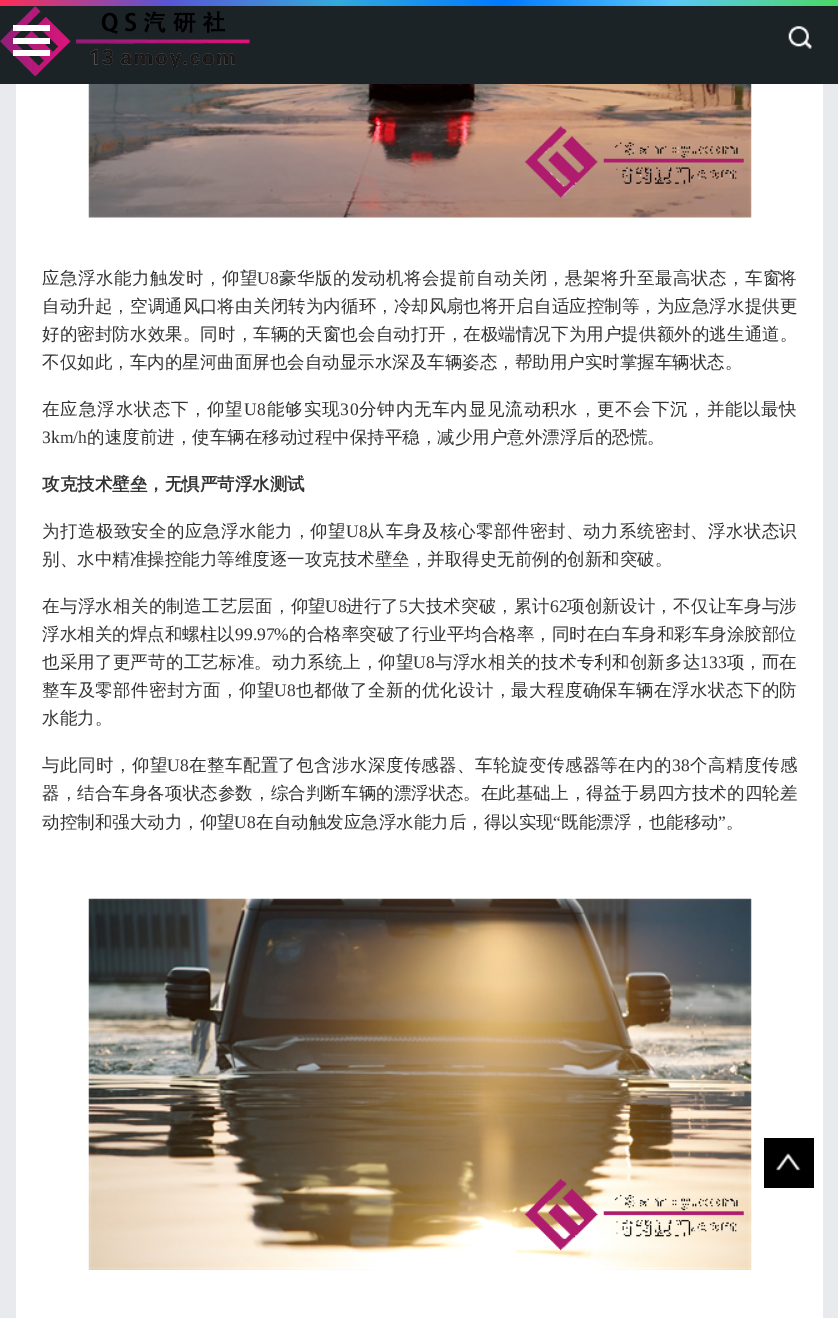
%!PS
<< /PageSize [838 1318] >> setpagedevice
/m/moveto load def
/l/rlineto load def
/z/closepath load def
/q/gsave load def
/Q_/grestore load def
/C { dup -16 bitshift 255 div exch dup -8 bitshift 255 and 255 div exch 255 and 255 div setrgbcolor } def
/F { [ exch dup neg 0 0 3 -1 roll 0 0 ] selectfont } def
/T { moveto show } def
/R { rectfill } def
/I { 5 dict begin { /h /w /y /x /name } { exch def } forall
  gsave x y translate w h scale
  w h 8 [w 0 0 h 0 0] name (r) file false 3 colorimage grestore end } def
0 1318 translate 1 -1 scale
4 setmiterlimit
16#E9EAED C
0 0 838 1318 R
16#1C2327 C
0 6 838 78 R
q 0 0 m 838 0 l 0 6 l -838 0 l z clip newpath
<< /ShadingType 2 /ColorSpace /DeviceRGB /Coords [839 3.1 0 3.1] /Extend [true true] /Function << /FunctionType 3 /Domain [0 1] /Functions [<< /FunctionType 2 /Domain [0 1] /C0 [.298 .851 .392] /C1 [.353 .784 .98] /N 1 >> << /FunctionType 2 /Domain [0 1] /C0 [.353 .784 .98] /C1 [0 .478 1] /N 1 >> << /FunctionType 2 /Domain [0 1] /C0 [0 .478 1] /C1 [.204 .667 .863] /N 1 >> << /FunctionType 2 /Domain [0 1] /C0 [.204 .667 .863] /C1 [.345 .337 .839] /N 1 >> << /FunctionType 2 /Domain [0 1] /C0 [.345 .337 .839] /C1 [1 .176 .333] /N 1 >>] /Bounds [.2 .4 .6 .8] /Encode [0 1 0 1 0 1 0 1 0 1] >> >> shfill Q_
(1.rgb) 0 6 250 71 I
16#FFFFFF C
13 38 37 6 R
13 25 37 6 R
13 50 37 6 R
(2.rgb) 788 26 25 23 I
16 84 807 1234 R
(3.rgb) 88 84 664 134 I
/WenQuanYiZenHei-Medium 17.5 F
16#333333 C
42 284 m .5 0 (应急浮水能力触发时，仰望) ashow
/LiberationSerif-Regular 17.5 F
257 284 m .4 0 (U8) ashow
/WenQuanYiZenHei-Medium 17.5 F
279 284 m .4 0 (豪华版的发动机将会提前自动关闭，) ashow
565 284 m .5 0 (悬架将升至最高状态，车窗) ashow
(将) 779 284 T
(自动升起，) 42 312 T
(空调通风口) 130 312 T
(将由) 217 312 T
253 312 m .1 0 (关闭转为内循环) ashow
(，冷却风扇) 376 312 T
(也将开启) 463 312 T
(自适应控制等) 534 312 T
639 312 m .1 0 (，为应急浮水提供更) ashow
42 340 m .1 0 (好的密封防水效果。同时，车辆的) ashow
(天窗也) 305 340 T
(会自动打开，) 358 340 T
463 340 m .1 0 (在极端情况下为用户提供额外的逃生通道。) ashow
(不仅如此，车内的星河曲面屏也会自动显示水深及车辆姿态，帮助用户实时掌握车辆状态。) 42 368 T
(在) 42 415 T
60 415 m 1 0 (应急浮水状态下) ashow
(，) 189 415 T
(仰望) 207 415 T
/LiberationSerif-Regular 17.5 F
244 415 m .8 0 (U8) ashow
/WenQuanYiZenHei-Medium 17.5 F
267 415 m .8 0 (能够实现) ashow
/LiberationSerif-Regular 17.5 F
340 415 m .8 0 (30) ashow
/WenQuanYiZenHei-Medium 17.5 F
359 415 m .8 0 (分钟内无车内显见流动积水，更不会下沉，并能) ashow
(以) 743 415 T
(最快) 761 415 T
/LiberationSerif-Regular 17.5 F
(3km/h) 42 443 T
/WenQuanYiZenHei-Medium 17.5 F
(的速度前进，使车辆在移动过程中保持平稳，减少用户意外漂浮后的恐慌。) 87 443 T
/WenQuanYiZenHei-Bold 17.5 F
(攻克技术壁垒，无惧严苛浮水测试) 42 490 T
/WenQuanYiZenHei-Medium 17.5 F
42 537 m .4 0 (为打造极致安全的应急浮水能力，仰望) ashow
/LiberationSerif-Regular 17.5 F
(U8) 346 537 T
/WenQuanYiZenHei-Medium 17.5 F
(从) 367 537 T
386 537 m .5 0 (车身及核心零部件密封、) ashow
583 537 m .5 0 (动力系统密封) ashow
690 537 m .4 0 (、浮水状态识) ashow
(别、水中精准操控能力等维度逐一攻克技术壁垒，并取得史无前例的创新和突破。) 42 565 T
42 612 m .25 0 (在与浮水相关的制造工艺层面，仰望) ashow
/LiberationSerif-Regular 17.5 F
325 612 m .2 0 (U8) ashow
/WenQuanYiZenHei-Medium 17.5 F
346 612 m .2 0 (进行了) ashow
/LiberationSerif-Regular 17.5 F
399 612 m .2 0 (5) ashow
/WenQuanYiZenHei-Medium 17.5 F
408 612 m .2 0 (大技术突破，累计) ashow
/LiberationSerif-Regular 17.5 F
550 612 m .2 0 (62) ashow
/WenQuanYiZenHei-Medium 17.5 F
567 612 m .2 0 (项创新设计，不仅让车身与涉) ashow
(浮水相关的焊点和螺柱) 42 640 T
(以) 217 640 T
/LiberationSerif-Regular 17.5 F
(99.97%) 235 640 T
/WenQuanYiZenHei-Medium 17.5 F
(的合格率突破了行业平均合格率，同时在白车身和彩车身涂胶部位) 289 640 T
42 668 m .2 0 (也采用了更严苛的工艺标准。动力系统上，仰望) ashow
/LiberationSerif-Regular 17.5 F
413 668 m .2 0 (U8) ashow
/WenQuanYiZenHei-Medium 17.5 F
435 668 m .2 0 (与浮水相关的技术专利和创新多达) ashow
/LiberationSerif-Regular 17.5 F
700 668 m .2 0 (133) ashow
/WenQuanYiZenHei-Medium 17.5 F
727 668 m .2 0 (项) ashow
(，而) 744 668 T
(在) 779 668 T
(整车) 42 696 T
(及) 78 696 T
95 696 m .5 0 (零部件) ashow
149 696 m .5 0 (密封方面，仰望) ashow
/LiberationSerif-Regular 17.5 F
(U8) 274 696 T
/WenQuanYiZenHei-Medium 17.5 F
(也) 296 696 T
314 696 m .5 0 (都做了全新的优化设计，) ashow
511 696 m .4 0 (最大程度确保车辆在浮水状态下的防) ashow
(水能力。) 42 724 T
42 771 m .5 0 (与此同时，仰望) ashow
/LiberationSerif-Regular 17.5 F
167 771 m .4 0 (U8) ashow
/WenQuanYiZenHei-Medium 17.5 F
189 771 m .4 0 (在整车配置了) ashow
(包含) 296 771 T
332 771 m .4 0 (涉水深度传感器、车轮旋变传感器等) ashow
618 771 m .5 0 (在内的) ashow
/LiberationSerif-Regular 17.5 F
672 771 m .5 0 (38) ashow
/WenQuanYiZenHei-Medium 17.5 F
690 771 m .5 0 (个高精度传感) ashow
(器，) 42 799 T
77 799 m .1 0 (结合车身各项状态参数，综合判断车辆) ashow
(的漂浮状态) 376 799 T
463 799 m .1 0 (。在此基础上，得益于易四方技术的四轮差) ashow
(动控制和强大动力，仰望) 42 828 T
/LiberationSerif-Regular 17.5 F
(U8) 234 828 T
/WenQuanYiZenHei-Medium 17.5 F
(在自动触发应急浮水能力后，得以实现) 256 828 T
/LiberationSerif-Regular 17.5 F
(“) 553 828 T
/WenQuanYiZenHei-Medium 17.5 F
(既能漂浮，也能移动) 561 828 T
/LiberationSerif-Regular 17.5 F
(”) 718 828 T
/WenQuanYiZenHei-Medium 17.5 F
(。) 726 828 T
(4.rgb) 88 898 664 372 I
16#000000 C
764 1138 50 50 R
(5.rgb) 776 1153 25 18 I
showpage
